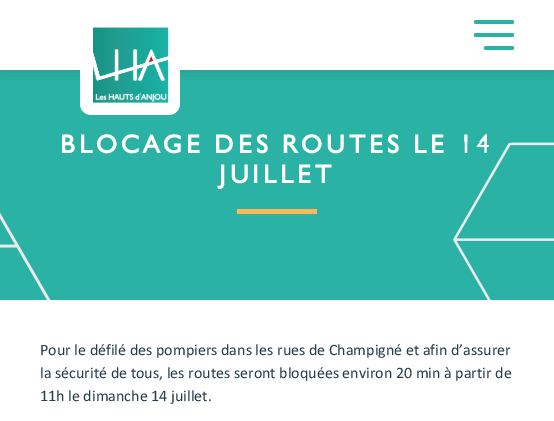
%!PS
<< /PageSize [554 421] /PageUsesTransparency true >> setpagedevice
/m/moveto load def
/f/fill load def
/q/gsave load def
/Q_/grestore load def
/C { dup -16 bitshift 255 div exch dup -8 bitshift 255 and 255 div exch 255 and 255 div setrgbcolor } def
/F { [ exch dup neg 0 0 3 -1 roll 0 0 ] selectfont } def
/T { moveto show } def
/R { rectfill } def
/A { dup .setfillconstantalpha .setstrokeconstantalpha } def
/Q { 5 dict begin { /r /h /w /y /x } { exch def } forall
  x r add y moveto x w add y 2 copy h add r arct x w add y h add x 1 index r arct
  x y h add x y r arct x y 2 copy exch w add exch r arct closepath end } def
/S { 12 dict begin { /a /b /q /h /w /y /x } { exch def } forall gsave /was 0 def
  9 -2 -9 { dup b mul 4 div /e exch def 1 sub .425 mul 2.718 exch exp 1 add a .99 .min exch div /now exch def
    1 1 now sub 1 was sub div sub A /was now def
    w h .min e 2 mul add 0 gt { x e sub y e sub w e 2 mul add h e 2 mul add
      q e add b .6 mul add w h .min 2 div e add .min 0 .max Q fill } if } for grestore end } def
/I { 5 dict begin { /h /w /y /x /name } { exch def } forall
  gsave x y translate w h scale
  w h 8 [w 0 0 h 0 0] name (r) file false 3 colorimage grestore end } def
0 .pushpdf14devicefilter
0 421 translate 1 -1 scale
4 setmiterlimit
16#FFFFFF C
0 0 554 421 R
16#2AB3A5 C
0 70 554 230 R
q
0 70 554 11 rectclip
16#000000 C
0 0 554 70 0 10 .15 S
Q_
(1.rgb) 80 27 100 88 I
474 20 40 4 2 Q f
474 33 40 4 2 Q f
484 46 30 4 2 Q f
(2.rgb) 0 212 51 88 I
/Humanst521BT-Bold 26 F
16#FFFFFF C
60 153 m 4 0 (BLOCAGE DES ROUTES LE 14) ashow
219 183 m 4 0 (JUILLET) ashow
16#FCB85B C
237 209 80 5 R
(3.rgb) 453 142 101 158 I
/Calibri-Regular 16 F
16#273E4B C
(Pour le défilé des pompiers dans les rues de Champigné et afin d’assurer) 40 355 T
(la sécurité de tous, les routes seront bloquées environ 20 min à partir de) 40 378 T
(11h le dimanche 14 juillet.) 40 401 T
.poppdf14devicefilter showpage
